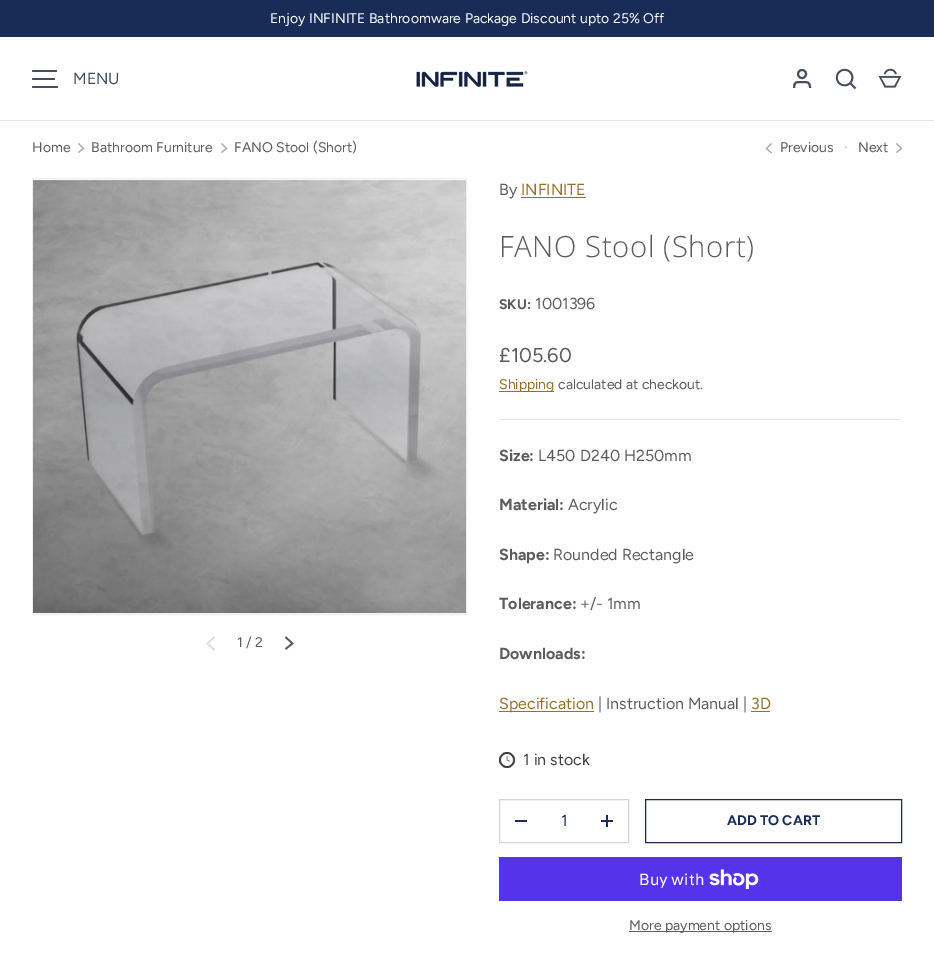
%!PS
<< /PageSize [934 959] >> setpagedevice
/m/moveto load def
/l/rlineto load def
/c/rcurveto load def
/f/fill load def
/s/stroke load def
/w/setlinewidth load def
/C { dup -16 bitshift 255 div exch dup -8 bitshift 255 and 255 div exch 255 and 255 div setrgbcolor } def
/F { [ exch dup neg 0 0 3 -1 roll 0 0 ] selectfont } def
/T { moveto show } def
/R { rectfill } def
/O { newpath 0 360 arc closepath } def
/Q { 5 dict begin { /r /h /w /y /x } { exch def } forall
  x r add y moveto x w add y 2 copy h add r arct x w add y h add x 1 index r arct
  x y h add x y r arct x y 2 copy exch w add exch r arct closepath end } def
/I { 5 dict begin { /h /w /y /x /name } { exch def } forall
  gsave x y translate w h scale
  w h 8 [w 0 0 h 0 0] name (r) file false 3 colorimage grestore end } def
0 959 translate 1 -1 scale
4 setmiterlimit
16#FFFFFF C
0 0 934 959 R
16#182C57 C
0 0 934 37 R
/Figtree-Regular 14 F
16#FFFFFF C
(Enjoy INFINITE Bathroomware Package Discount upto 25% Off) 270 23 T
16#454F5B C
32 70 25 2 1 Q f
32 78 23 2 1 Q f
32 86 26 2 1 Q f
/Figtree-Regular 16 F
(MENU) 73 84 T
(1.rgb) 416 70 112 17 I
2 w
802 74 4 O s
810 88 m 0 -6.5 -2.5 -6 -8 -6 c -5.5 0 -8 -.5 -8 6 c s
(2.rgb) 835 68 22 22 I
(3.rgb) 878 68 24 20 I
16#E3E5E6 C
0 120 934 1 R
/Figtree-Regular 14 F
16#5C5C5C C
(Home) 32 152 T
16#AEAEAE C
1.2 w
78.5 143.5 m 5 5 l -5 4 l s
16#5C5C5C C
(Bathroom Furniture) 91 152 T
16#AEAEAE C
221.5 143.5 m 5 5 l -5 4 l s
16#5C5C5C C
(FANO Stool \(Short\)) 234 152 T
16#AEAEAE C
771.5 143.5 m -5 5 l 5 4.5 l s
16#5C5C5C C
(Previous) 780 152 T
16#AEAEAE C
(·) 844 152 T
16#5C5C5C C
(Next) 858 152 T
16#AEAEAE C
896.5 143.5 m 5 5 l -5 4 l s
16#EFEFEF C
1 w
32.5 178.5 434 436 rectstroke
(4.rgb) 33 180 433 434 I
16#DEDEDE C
1.7 w
214.5 637 m -7 6.5 l 7 6.5 l s
16#5C5C5C C
(1 / 2) 237 647 T
285.5 637 m 7 6.5 l -7 5.5 l s
/Figtree-Regular 16 F
(By) 499 195 T
16#93712B C
(INFINITE) 521 195 T
521 197 65 1 R
/OpenSans-Light 29.25 F
16#5C5C5C C
499 257 m .6 0 (FANO Stool \(Short\)) ashow
/Figtree-Bold 14 F
(SKU:) 499 309 T
/Figtree-Regular 16 F
(1001396) 535 309 T
/Figtree-Regular 20 F
(£105.60) 499 362 T
16#93712B C
499 391 55 1 R
/Figtree-Regular 14 F
(Shipping) 499 389 T
16#5C5C5C C
(calculated at checkout.) 558 389 T
16#E7E7E7 C
499 419 403 1 R
/Figtree-Bold 16 F
16#5C5C5C C
(Size:) 499 461 T
/Figtree-Regular 16 F
(L450 D240 H250mm) 538 461 T
/Figtree-Bold 16 F
(Material:) 499 510 T
/Figtree-Regular 16 F
(Acrylic) 568 510 T
/Figtree-Bold 16 F
(Shape:) 499 560 T
/Figtree-Regular 16 F
(Rounded Rectangle) 553 560 T
/Figtree-Bold 16 F
(Tolerance:) 499 609 T
/Figtree-Regular 16 F
(+/- 1mm) 580 609 T
/Figtree-Bold 16 F
(Downloads:) 499 659 T
16#93712B C
499 711 95 1 R
/Figtree-Regular 16 F
(Specification) 499 709 T
16#5C5C5C C
(| Instruction Manual |) 598 709 T
16#93712B C
(3D) 751 709 T
751 711 19 1 R
16#3F3F3F C
507 760 8 O f
(5.rgb) 500 753 14 14 I
(1 in stock) 523 765 T
16#D1D5DD C
1 w
499.5 799.5 129 43 rectstroke
16#182C57 C
515 820 12 2 R
(1) 561 826 T
601 820 12 2 R
606 815 2 12 R
645.5 799.5 256 43 rectstroke
/Figtree-Bold 14 F
(ADD TO CART) 727 825 T
16#5433EB C
499 857 403 44 R
/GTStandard-Regular 16 F
16#FFFFFF C
(Buy with) 639 885 T
(6.rgb) 709 869 50 20 I
16#5C5C5C C
629 931 143 1 R
/Figtree-Regular 14 F
(More payment options) 629 930 T
showpage
